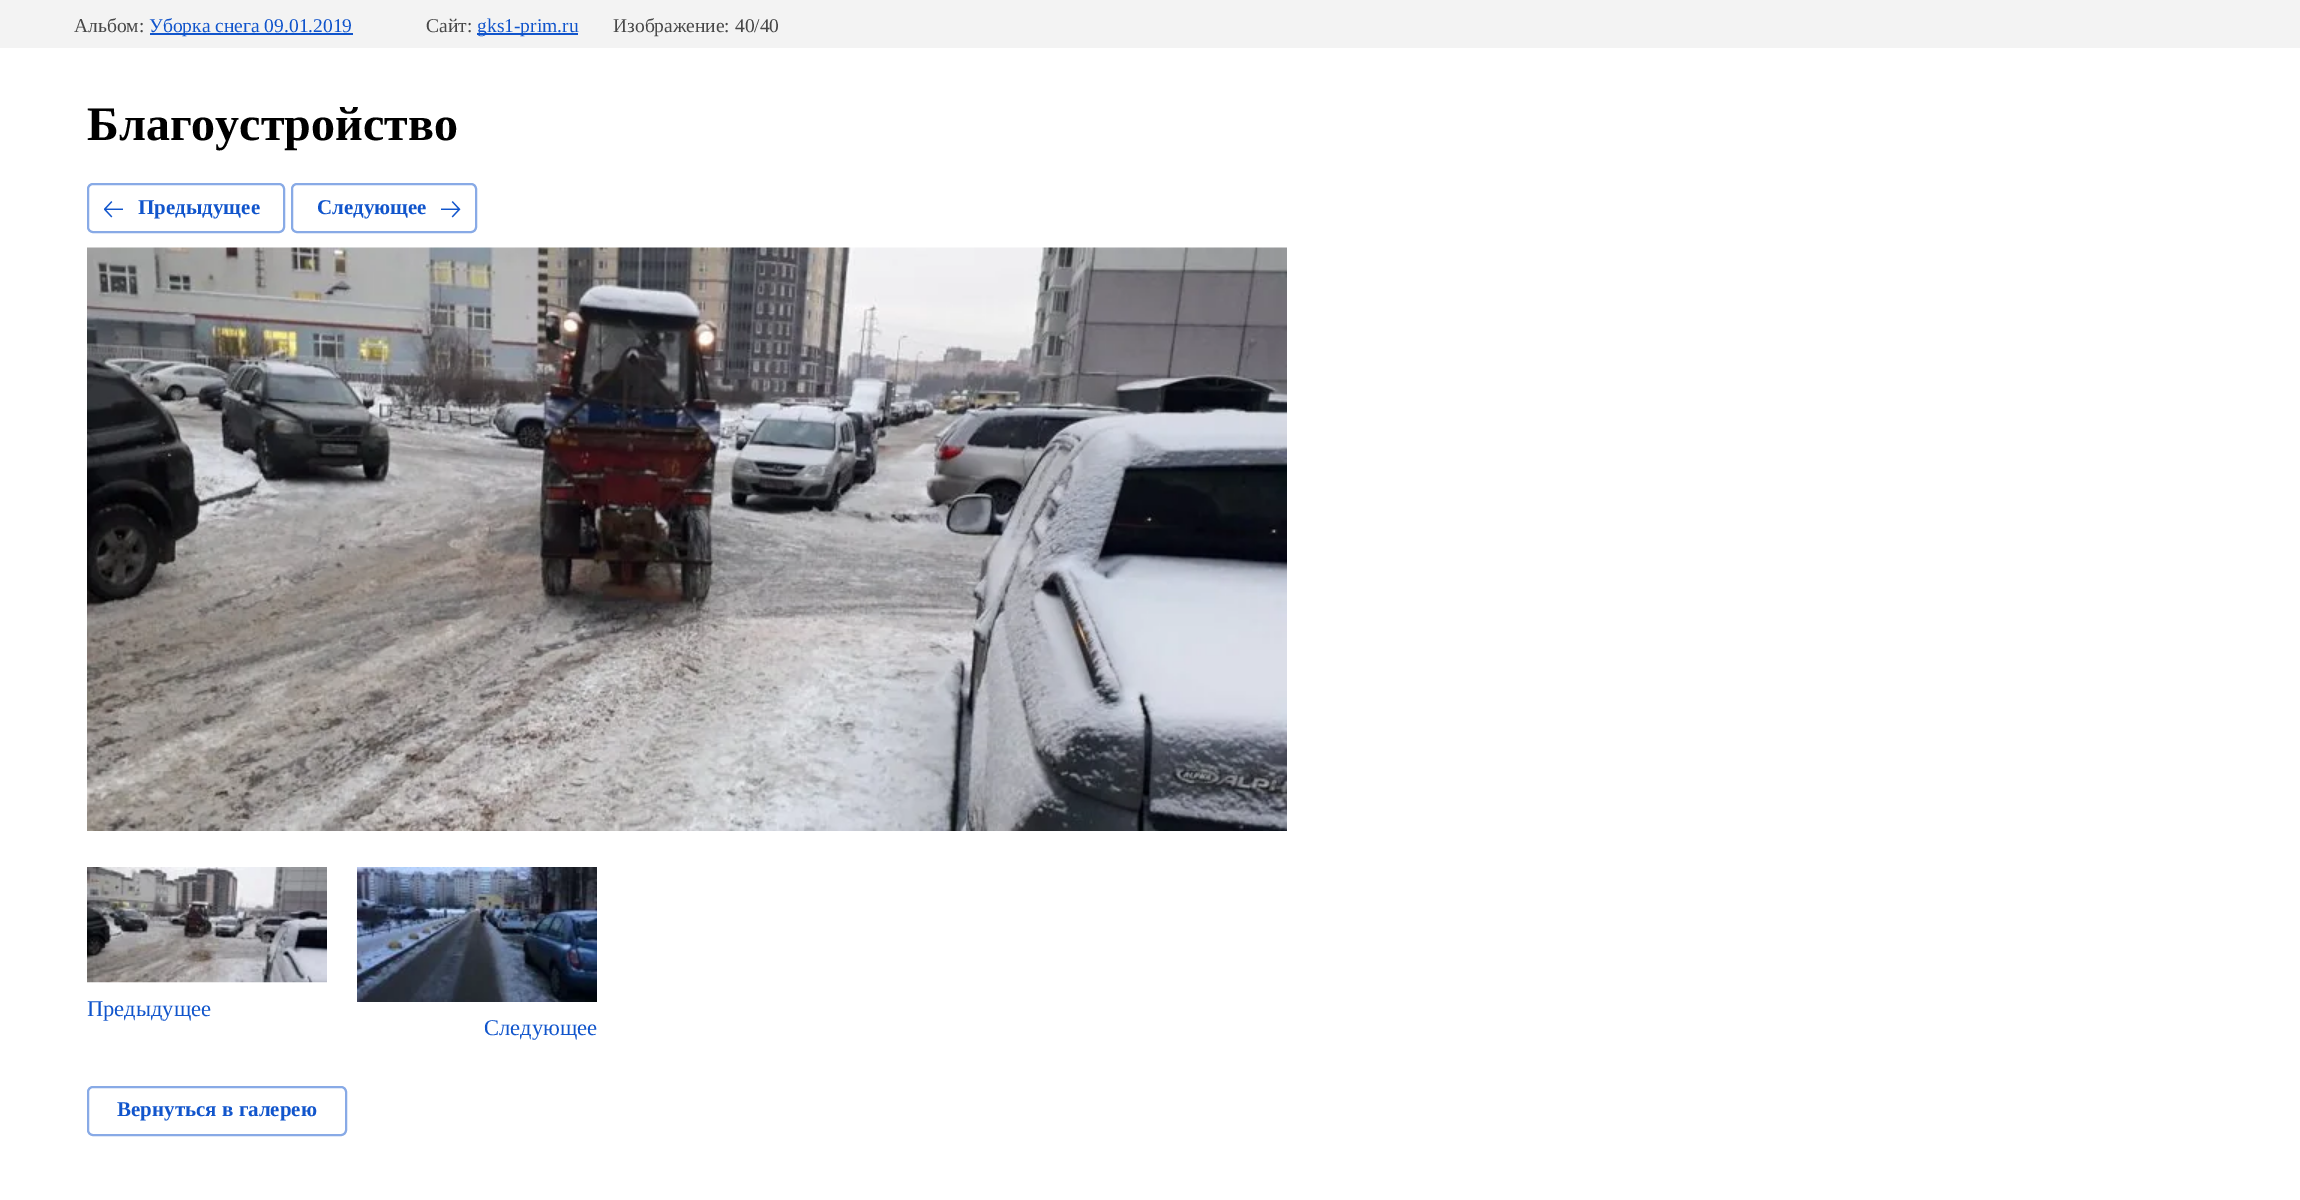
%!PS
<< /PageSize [2300 1200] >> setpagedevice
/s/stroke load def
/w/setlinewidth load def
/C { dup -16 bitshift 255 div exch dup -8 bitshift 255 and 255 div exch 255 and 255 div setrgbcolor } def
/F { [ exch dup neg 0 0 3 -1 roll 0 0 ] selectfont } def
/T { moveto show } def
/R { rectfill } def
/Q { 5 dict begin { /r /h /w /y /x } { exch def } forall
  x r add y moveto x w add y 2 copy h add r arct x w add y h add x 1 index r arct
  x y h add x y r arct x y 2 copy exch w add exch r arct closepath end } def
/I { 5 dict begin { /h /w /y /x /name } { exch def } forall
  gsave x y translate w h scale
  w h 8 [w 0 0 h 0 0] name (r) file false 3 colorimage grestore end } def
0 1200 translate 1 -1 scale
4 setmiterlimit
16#FFFFFF C
0 0 2300 1200 R
16#F3F3F3 C
0 0 2300 48 R
/LiberationSerif-Regular 19.5 F
16#484848 C
(Альбом:) 74 32 T
16#1155CC C
150 33 203 2 R
(Уборка снега 09.01.2019) 149 32 T
16#484848 C
(Сайт:) 426 32 T
16#1155CC C
477 33 101 2 R
(gks1-prim.ru) 477 32 T
16#484848 C
(Изображение: 40/40) 613 32 T
/LiberationSerif-Bold 48 F
16#000000 C
(Благоустройство) 87 140 T
16#88AAE6 C
2 w
88 184 196 48 5 Q s
(1.rgb) 104 201 19 17 I
/LiberationSerif-Bold 21 F
16#1155CC C
(Предыдущее) 138 214 T
16#88AAE6 C
292 184 184 48 5 Q s
16#1155CC C
(Следующее) 317 214 T
(2.rgb) 441 201 20 17 I
(3.rgb) 87 247 1200 584 I
(4.rgb) 87 867 240 116 I
/LiberationSerif-Regular 22.5 F
(Предыдущее) 87 1016 T
(5.rgb) 357 867 240 135 I
(Следующее) 484 1035 T
16#88AAE6 C
88 1087 258 48 5 Q s
/LiberationSerif-Bold 21 F
16#1155CC C
(Вернуться в галерею) 117 1116 T
showpage
